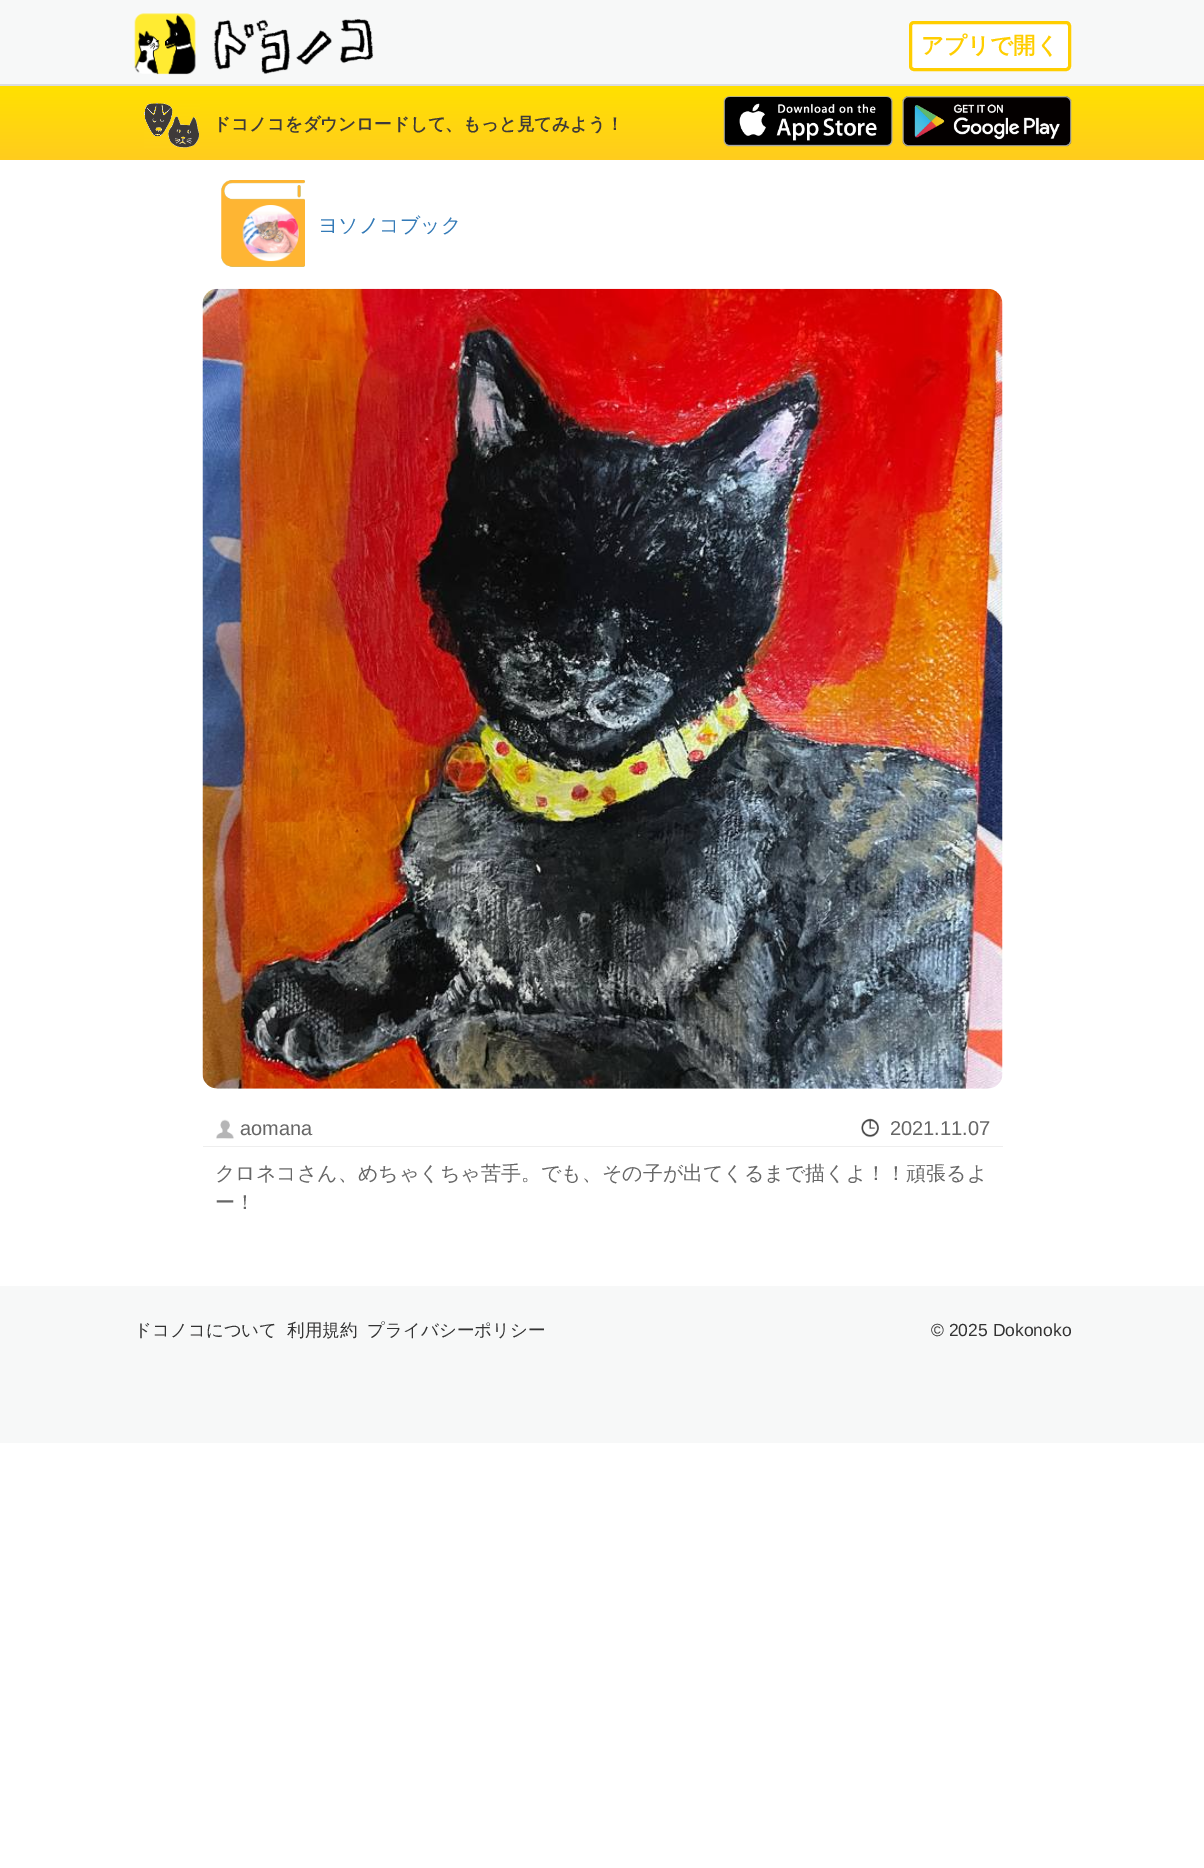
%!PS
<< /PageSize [1204 1868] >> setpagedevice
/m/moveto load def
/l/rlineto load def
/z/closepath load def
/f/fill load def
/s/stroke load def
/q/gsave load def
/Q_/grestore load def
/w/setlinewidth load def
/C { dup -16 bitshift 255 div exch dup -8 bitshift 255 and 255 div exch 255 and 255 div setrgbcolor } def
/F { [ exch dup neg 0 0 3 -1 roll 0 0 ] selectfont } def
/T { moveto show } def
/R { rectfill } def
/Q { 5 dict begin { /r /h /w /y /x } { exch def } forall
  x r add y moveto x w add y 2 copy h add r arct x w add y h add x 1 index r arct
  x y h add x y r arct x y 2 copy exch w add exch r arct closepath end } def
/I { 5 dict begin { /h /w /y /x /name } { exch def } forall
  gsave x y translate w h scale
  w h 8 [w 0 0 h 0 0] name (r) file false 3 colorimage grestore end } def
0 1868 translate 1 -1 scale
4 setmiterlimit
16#FFFFFF C
0 0 1204 1868 R
16#F7F8F8 C
0 0 1204 84 R
16#DCDDDD C
0 84 1204 2 R
(1.rgb) 134 13 62 62 I
(2.rgb) 214 19 160 55 I
16#FFFFFF C
910.5 22.5 159 47 3.5 Q q f Q_
16#FFCE00 C
3 w
s
/WenQuanYiZenHei-Bold 22.5 F
(アプリで開く) 921 53 T
q 0 86 m 1204 0 l 0 74 l -1204 0 l z clip newpath
<< /ShadingType 2 /ColorSpace /DeviceRGB /Coords [0 86 0 160] /Extend [true true] /Function << /FunctionType 2 /Domain [0 1] /C0 [1 .882 0] /C1 [1 .8 .118] /N 1 >> >> shfill Q_
(3.rgb) 144 103 56 45 I
/WenQuanYiZenHei-Bold 17.5 F
16#3E3A39 C
(ドコノコをダウンロードして、もっと見てみよう！) 213 130 T
(4.rgb) 723 96 170 51 I
(5.rgb) 902 96 170 51 I
(6.rgb) 221 180 84 87 I
(7.rgb) 242 205 57 57 I
/WenQuanYiZenHei-Medium 20 F
16#337AB7 C
(ヨソノコブック) 318 232 T
(8.rgb) 202 288 801 801 I
(9.rgb) 216 1119 18 20 I
/LiberationSans-Regular 20 F
16#666666 C
(aomana) 240 1135 T
(10.rgb) 861 1118 18 20 I
(2021.11.07) 890 1135 T
16#EEEEEE C
203 1146 800 1 R
/WenQuanYiZenHei-Medium 20 F
16#666666 C
(クロネコさん、めちゃくちゃ苦手。でも、その子が出てくるまで描くよ！！頑張るよ) 215 1180 T
(ー！) 215 1209 T
16#F7F8F8 C
0 1286 1204 157 R
/WenQuanYiZenHei-Medium 17.5 F
16#333333 C
(ドコノコについて) 134 1336 T
(利用規約) 287 1336 T
(プライバシーポリシー) 367 1336 T
/LiberationSans-Regular 17.5 F
(© 2025 Dokonoko) 931 1336 T
showpage
